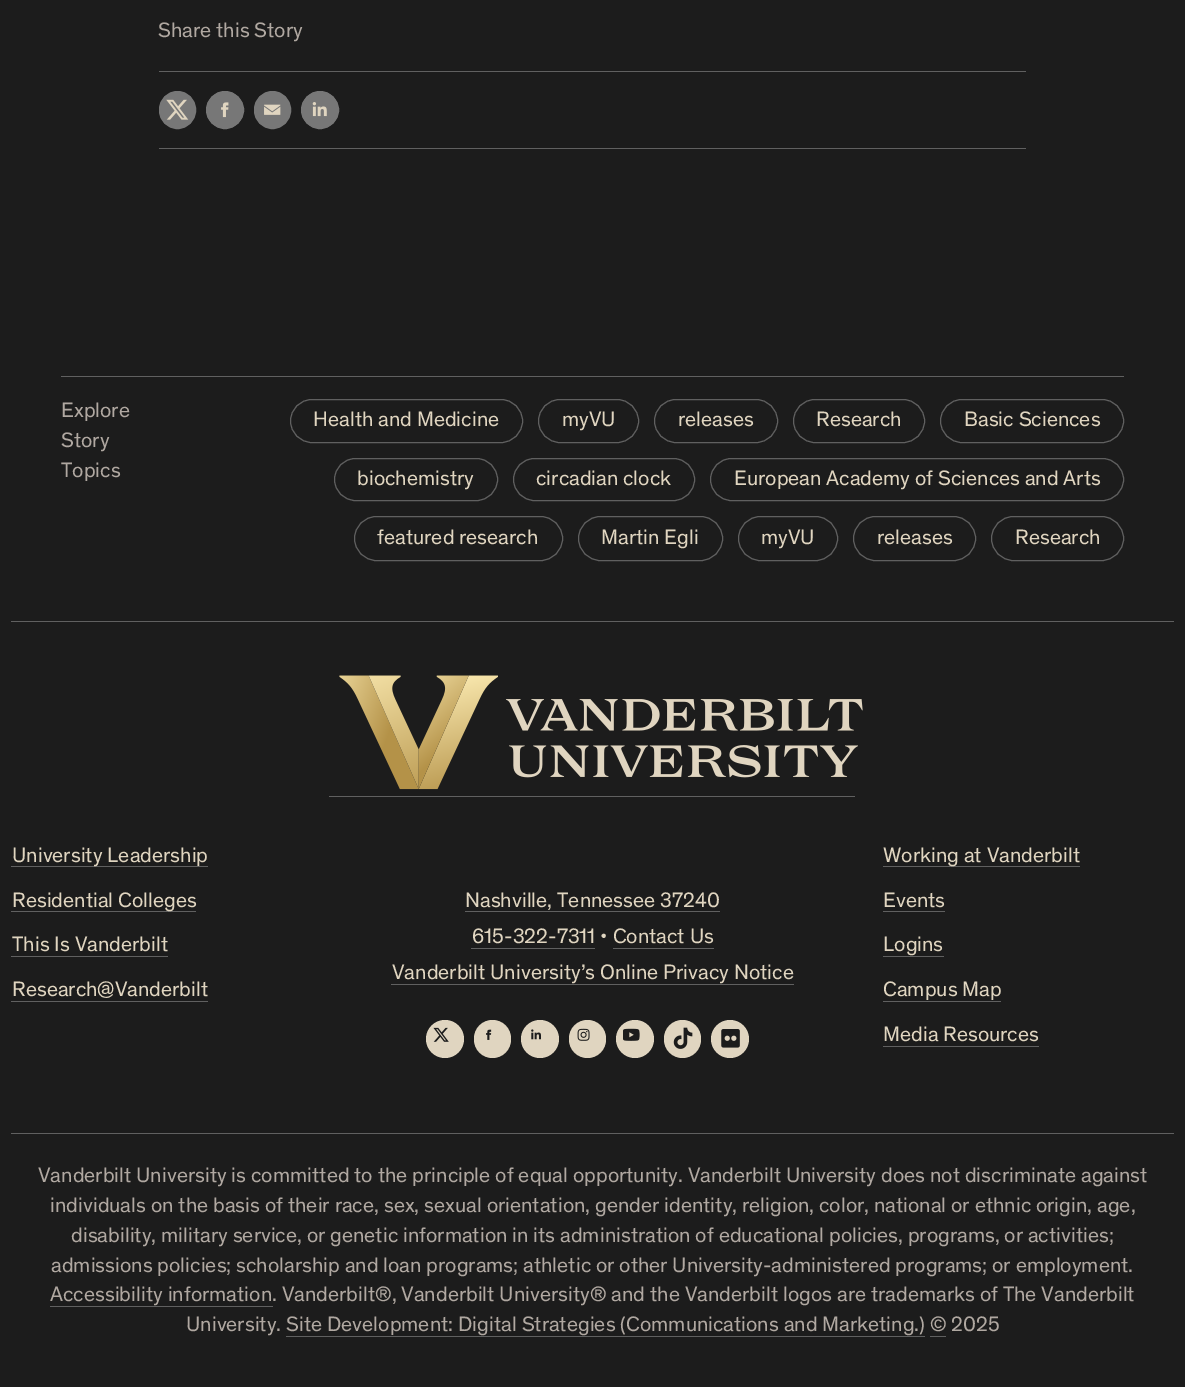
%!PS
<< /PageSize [1185 1387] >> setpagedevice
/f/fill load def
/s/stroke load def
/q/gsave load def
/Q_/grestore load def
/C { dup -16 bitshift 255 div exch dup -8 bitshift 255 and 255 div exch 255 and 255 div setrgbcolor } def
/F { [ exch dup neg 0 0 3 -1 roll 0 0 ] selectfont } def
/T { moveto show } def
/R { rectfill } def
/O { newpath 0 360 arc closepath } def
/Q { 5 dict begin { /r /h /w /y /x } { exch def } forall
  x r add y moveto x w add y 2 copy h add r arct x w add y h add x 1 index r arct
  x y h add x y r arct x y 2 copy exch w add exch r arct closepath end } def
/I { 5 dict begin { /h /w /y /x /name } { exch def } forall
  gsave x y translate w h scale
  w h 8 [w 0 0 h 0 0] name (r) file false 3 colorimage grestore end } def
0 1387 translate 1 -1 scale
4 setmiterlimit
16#1C1C1C C
0 0 1185 1387 R
/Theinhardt-Regular 21.25 F
16#B0A8A1 C
(Share this Story) 158 37 T
16#606060 C
159 71 867 1 R
16#777777 C
159.5 91.5 36 37 18 Q q f Q_
s
(1.rgb) 166 99 23 21 I
225 110 18.5 O q f Q_
s
(2.rgb) 221 102 8 16 I
254.5 91.5 36 37 18 Q q f Q_
s
(3.rgb) 264 104 17 11 I
320 110 18.5 O q f Q_
s
(4.rgb) 312 102 15 15 I
16#606060 C
159 148 867 1 R
61 376 1063 1 R
16#B0A8A1 C
(Explore) 61 417 T
(Story) 61 447 T
(Topics) 61 477 T
16#606060 C
290.5 399.5 232 43 21.5 Q s
16#E0D5C0 C
(Health and Medicine) 313 426 T
16#606060 C
538.5 399.5 100 43 21.5 Q s
16#E0D5C0 C
(myVU) 562 426 T
16#606060 C
654.5 399.5 123 43 21.5 Q s
16#E0D5C0 C
(releases) 678 426 T
16#606060 C
793.5 399.5 131 43 21.5 Q s
16#E0D5C0 C
(Research) 816 426 T
16#606060 C
940.5 399.5 183 43 21.5 Q s
16#E0D5C0 C
(Basic Sciences) 964 426 T
16#606060 C
334.5 458.5 163 42 21 Q s
16#E0D5C0 C
(biochemistry) 357 485 T
16#606060 C
513.5 458.5 181 42 21 Q s
16#E0D5C0 C
(circadian clock) 536 485 T
16#606060 C
710.5 458.5 413 42 21 Q s
16#E0D5C0 C
(European Academy of Sciences and Arts) 734 485 T
16#606060 C
354.5 516.5 208 44 22 Q s
16#E0D5C0 C
(featured research) 377 544 T
16#606060 C
578.5 516.5 144 44 22 Q s
16#E0D5C0 C
(Martin Egli) 601 544 T
16#606060 C
738.5 516.5 99 44 22 Q s
16#E0D5C0 C
(myVU) 761 544 T
16#606060 C
853.5 516.5 122 44 22 Q s
16#E0D5C0 C
(releases) 877 544 T
16#606060 C
991.5 516.5 132 44 22 Q s
16#E0D5C0 C
(Research) 1015 544 T
16#606060 C
11 621 1163 1 R
329 796 526 1 R
(5.rgb) 339 675 524 115 I
11 866 197 1 R
16#E0D5C0 C
(University Leadership) 12 862 T
16#606060 C
11 911 185 1 R
16#E0D5C0 C
(Residential Colleges) 12 907 T
(This Is Vanderbilt) 12 951 T
16#606060 C
11 956 157 1 R
16#E0D5C0 C
(Research@Vanderbilt) 12 996 T
16#606060 C
11 1001 197 1 R
883 866 197 1 R
16#E0D5C0 C
(Working at Vanderbilt) 883 862 T
(Events) 883 907 T
16#606060 C
883 911 62 1 R
16#E0D5C0 C
(Logins) 883 951 T
16#606060 C
883 956 61 1 R
16#E0D5C0 C
(Campus Map) 883 996 T
16#606060 C
883 1001 118 1 R
16#E0D5C0 C
(Media Resources) 883 1041 T
16#606060 C
883 1046 156 1 R
16#E0D5C0 C
(Nashville, Tennessee 37240) 465 907 T
16#606060 C
465 911 255 1 R
16#E0D5C0 C
(615-322-7311 • Contact Us) 472 943 T
16#606060 C
471 948 124 1 R
613 948 101 1 R
16#E0D5C0 C
(Vanderbilt University’s Online Privacy Notice) 392 979 T
16#606060 C
391 984 403 1 R
16#E0D5C0 C
445 1039 19 O f
(6.rgb) 433 1027 16 15 I
474 1020 37 38 18.5 Q f
(7.rgb) 486 1029 6 11 I
540 1039 19 O f
(8.rgb) 531 1029 10 11 I
569 1020 37 38 18.5 Q f
(9.rgb) 577 1028 13 13 I
635 1039 19 O f
(10.rgb) 623 1028 17 13 I
664 1020 37 38 18.5 Q f
(11.rgb) 673 1027 20 22 I
730 1039 19 O f
(12.rgb) 721 1029 19 19 I
16#606060 C
11 1133 1163 1 R
16#B0A8A1 C
(Vanderbilt University is committed to the principle of equal opportunity. Vanderbilt University does not discriminate against) 38 1182 T
(individuals on the basis of their race, sex, sexual orientation, gender identity, religion, color, national or ethnic origin, age,) 50 1212 T
(disability, military service, or genetic information in its administration of educational policies, programs, or activities;) 71 1242 T
(admissions policies; scholarship and loan programs; athletic or other University-administered programs; or employment.) 51 1272 T
(Accessibility information. Vanderbilt®, Vanderbilt University® and the Vanderbilt logos are trademarks of The Vanderbilt) 50 1301 T
16#606060 C
50 1306 223 1 R
16#B0A8A1 C
(University. Site Development: Digital Strategies \(Communications and Marketing.\) © 2025) 186 1331 T
16#606060 C
286 1336 639 1 R
930 1336 16 1 R
showpage
